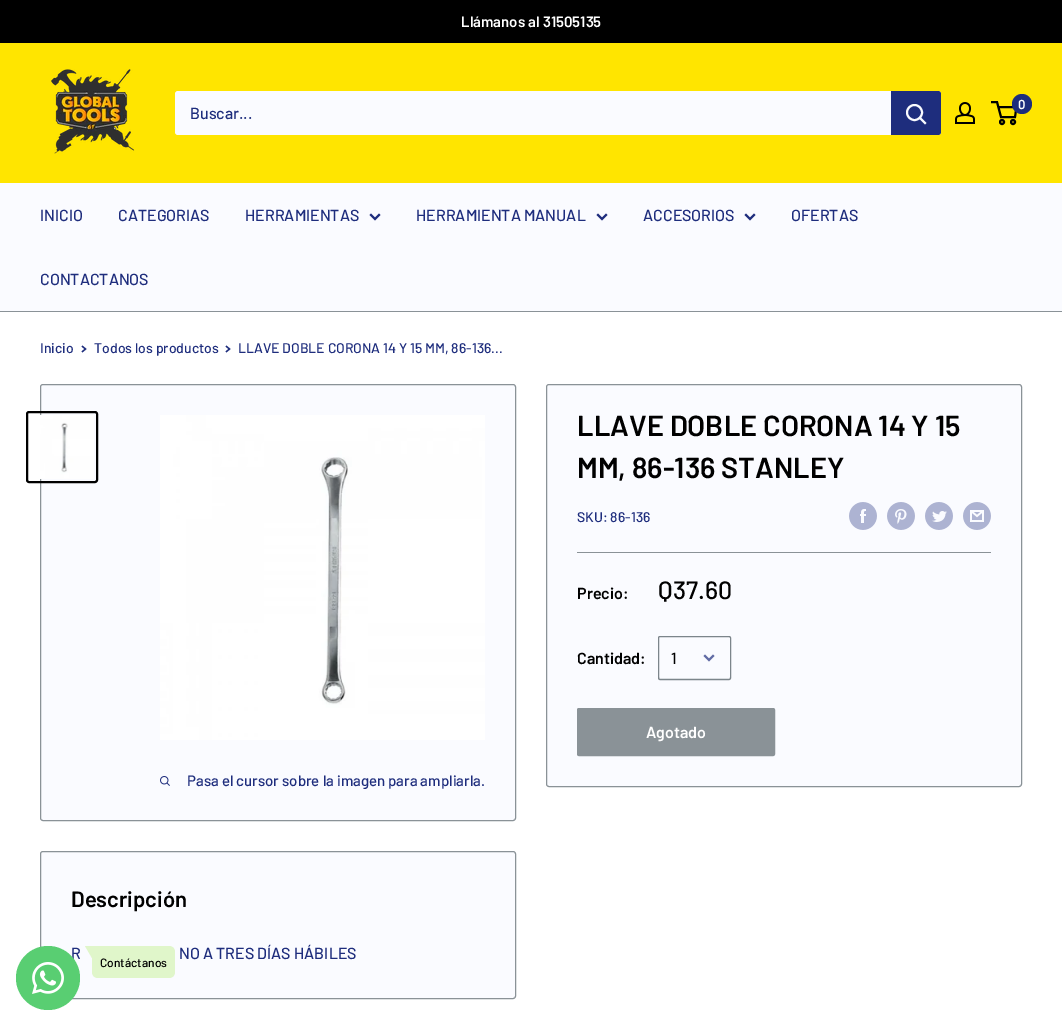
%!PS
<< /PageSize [1062 1026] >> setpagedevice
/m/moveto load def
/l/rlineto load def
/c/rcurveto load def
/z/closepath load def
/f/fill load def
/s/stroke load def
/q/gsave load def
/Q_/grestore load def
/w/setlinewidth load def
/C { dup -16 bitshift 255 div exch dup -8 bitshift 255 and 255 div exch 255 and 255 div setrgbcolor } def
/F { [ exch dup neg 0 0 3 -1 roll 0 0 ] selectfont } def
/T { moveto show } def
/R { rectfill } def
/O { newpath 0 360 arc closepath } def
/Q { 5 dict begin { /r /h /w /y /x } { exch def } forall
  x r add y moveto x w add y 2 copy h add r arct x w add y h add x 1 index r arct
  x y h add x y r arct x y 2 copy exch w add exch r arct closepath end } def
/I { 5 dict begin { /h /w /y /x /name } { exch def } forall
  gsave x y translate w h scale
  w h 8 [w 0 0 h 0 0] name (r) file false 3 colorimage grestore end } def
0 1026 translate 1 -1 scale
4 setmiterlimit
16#FFFFFF C
0 0 1062 1026 R
16#000000 C
0 0 1062 43 R
/Barlow-SemiBold 15 F
16#FFFFFF C
(Llámanos al 31505135) 461 27 T
16#FFE500 C
0 43 1062 140 R
(1.rgb) 51 69 84 85 I
(2.rgb) 955 102 20 22 I
16#000000 C
2 w
1002 122 2 O s
1013 122 2 O s
998.5 107 m 18 0 l -1.5 10 l -14 0 l -4 -15 l -6 0 l s
16#1E2D7D C
1022 104 10 O f
/Barlow-SemiBold 13 F
16#FFFFFF C
(0) 1018 109 T
16#FAFBFF C
175 91 766 44 3 Q f
/Barlow-Medium 16 F
16#1E2D7D C
(Buscar...) 190 119 T
891 91 m 47 0 l 1.5 0 3 1.5 3 3 c 0 38 l 0 1.5 -1.5 3 -3 3 c -47 0 l z f
16#FAFBFF C
2 setlinecap
925 123 m -5 -5 l s
0 setlinecap
914.5 112.5 7.5 O s
0 183 1062 128 R
16#8A9297 C
0 311 1062 1 R
16#1E2D7D C
(INICIO) 40 221 T
(CATEGORIAS) 118 221 T
(HERRAMIENTAS) 245 221 T
2 setlinecap
379 215 m -4 4 l -4 -4 l s
(HERRAMIENTA MANUAL) 416 221 T
606 215 m -4 4 l -4 -4 l s
(ACCESORIOS) 643 221 T
754 215 m -4 4 l -4 -4 l s
(OFERTAS) 791 221 T
(CONTACTANOS) 40 285 T
/Barlow-Medium 14 F
(Inicio) 40 353 T
1.3 w
82.5 346.5 m 3 2.5 l -3 2.5 l s
(Todos los productos) 94 353 T
226.5 346.5 m 3 2.5 l -3 2.5 l s
(LLAVE DOBLE CORONA 14 Y 15 MM, 86-136...) 238 353 T
16#FAFBFF C
546.5 384.5 475 402 2.5 Q q f Q_
16#8A9297 C
1 w
0 setlinecap
s
/Barlow-SemiBold 29 F
16#000000 C
(LLAVE DOBLE CORONA 14 Y 15) 577 436 T
(MM, 86-136 STANLEY) 577 478 T
/Barlow-Medium 14 F
16#1E2D7D C
(SKU: 86-136) 577 522 T
(3.rgb) 849 502 28 28 I
(4.rgb) 887 502 28 28 I
(5.rgb) 925 502 28 28 I
(6.rgb) 963 502 28 28 I
16#8A9297 C
577 552 414 1 R
/Barlow-SemiBold 16 F
16#000000 C
(Precio:) 577 599 T
/Barlow-Medium 25 F
(Q37.60) 658 599 T
/Barlow-SemiBold 16 F
(Cantidad:) 577 664 T
16#D8DCE0 C
659 677 m 0 1 0 2 1 2 c 69 0 l 1 -2 l -1 1 l -57 0 l -12 0 l z f
16#7C858B C
658.5 636.5 72 43 1.5 Q s
/Barlow-Medium 16 F
16#000000 C
(1) 671 664 T
16#606BA4 C
2 w
2 setlinecap
713 656 m -4 4 l -4 -4 l s
16#8A9297 C
577.5 708.5 197 47 1.5 Q q f Q_
1 w
0 setlinecap
s
/Barlow-SemiBold 16 F
16#FFFFFF C
(Agotado) 646 738 T
16#FAFBFF C
40.5 384.5 475 436 2.5 Q q f Q_
16#8A9297 C
s
16#000000 C
2 w
27 412 70 70 2 Q s
(7.rgb) 40 415 54 64 I
(8.rgb) 160 415 325 325 I
(9.rgb) 160 776 10 10 I
/Barlow-Medium 15 F
16#1E2D7D C
(Pasa el cursor sobre la imagen para ampliarla.) 187 786 T
16#FAFBFF C
40.5 851.5 475 147 2.5 Q q f Q_
16#8A9297 C
1 w
s
/Barlow-SemiBold 22 F
16#000000 C
(Descripción) 71 907 T
/Barlow-Medium 16 F
16#1E2D7D C
(R) 71 959 T
(NO A TRES DÍAS HÁBILES) 179 959 T
16#59CE72 C
48 978 32 O f
(10.rgb) 32 962 32 32 I
16#E0F6CA C
92 946 m 77 0 l 3.5 0 6 2.5 6 6 c 0 20 l 0 3.5 -2.5 6 -6 6 c -71 0 l -3.5 0 -6 -2.5 -6 -6 c z f
85 946 m 7 0 l 0 12 l z f
/Barlow-Medium 12 F
16#000000 C
(Contáctanos) 100 967 T
showpage
